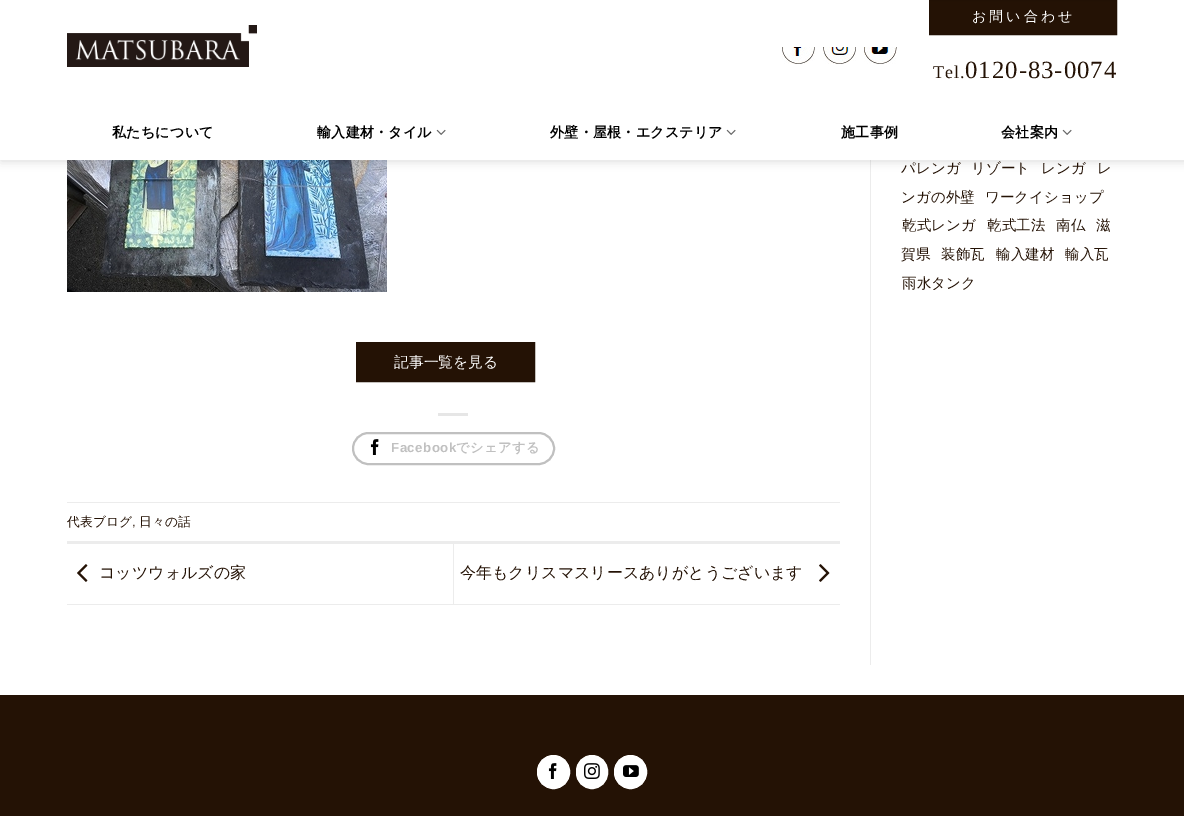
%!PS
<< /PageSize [1184 816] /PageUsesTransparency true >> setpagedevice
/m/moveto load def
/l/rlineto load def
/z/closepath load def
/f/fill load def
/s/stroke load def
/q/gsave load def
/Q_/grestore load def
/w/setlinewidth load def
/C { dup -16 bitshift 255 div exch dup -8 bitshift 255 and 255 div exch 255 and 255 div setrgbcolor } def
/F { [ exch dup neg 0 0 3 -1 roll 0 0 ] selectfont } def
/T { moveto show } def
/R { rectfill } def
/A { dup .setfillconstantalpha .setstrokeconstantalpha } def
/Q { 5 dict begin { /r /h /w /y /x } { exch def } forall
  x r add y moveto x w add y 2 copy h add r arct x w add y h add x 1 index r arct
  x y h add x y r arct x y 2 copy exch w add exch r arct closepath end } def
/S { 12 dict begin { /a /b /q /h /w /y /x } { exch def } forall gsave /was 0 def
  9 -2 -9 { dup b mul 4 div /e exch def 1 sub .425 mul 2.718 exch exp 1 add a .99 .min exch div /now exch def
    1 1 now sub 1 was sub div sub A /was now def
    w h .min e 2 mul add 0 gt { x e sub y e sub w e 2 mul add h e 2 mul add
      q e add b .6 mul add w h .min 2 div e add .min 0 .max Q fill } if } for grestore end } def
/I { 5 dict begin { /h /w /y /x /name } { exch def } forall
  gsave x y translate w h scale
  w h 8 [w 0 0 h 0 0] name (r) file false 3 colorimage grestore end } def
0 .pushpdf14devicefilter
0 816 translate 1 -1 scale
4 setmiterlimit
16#FFFFFF C
0 0 1184 816 R
16#ECECEC C
870 160 1 505 R
(6.rgb) 67 160 320 132 I
16#000000 C
1 1 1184 160 0 5 .15 S
16#FFFFFF C
0 0 1184 160 R
16#241205 C
929.5 .5 m 187 0 l 0 34 l -187 0 l z q f Q_
16#221105 C
s
/WenQuanYiZenHei-Medium 14 F
16#FFFFFF C
972 21 m 3 0 (お問い合わせ) ashow
(1.rgb) 67 25 190 42 I
(2.rgb) 782 47 33 17 I
(3.rgb) 823 47 33 17 I
(4.rgb) 864 47 33 17 I
/LiberationSerif-Regular 18 F
16#241205 C
933 78 m 1 0 (Tel.) ashow
/LiberationSerif-Regular 24.75 F
965 78 m 1 0 (0120-83-0074) ashow
/WenQuanYiZenHei-Bold 14 F
16#000000 C
112 137 m .25 0 (私たちについて) ashow
317 137 m .25 0 (輸入建材・タイル) ashow
(5.rgb) 436 129 10 6 I
550 137 m .25 0 (外壁・屋根・エクステリア) ashow
(5.rgb) 726 129 10 6 I
841 137 m .25 0 (施工事例) ashow
1001 137 m .25 0 (会社案内) ashow
(5.rgb) 1062 129 10 6 I
/WenQuanYiZenHei-Medium 14.5 F
16#241205 C
(パレンガ) 901 173 T
(リゾート) 971 173 T
(レンガ) 1041 173 T
(レ) 1097 173 T
(ンガの外壁) 901 202 T
(ワークイショップ) 985 202 T
(乾式レンガ) 902 230 T
(乾式工法) 987 230 T
(南仏) 1056 230 T
(滋) 1096 230 T
(賀県) 901 259 T
(装飾瓦) 941 259 T
(輸入建材) 996 259 T
(輸入瓦) 1065 259 T
(雨水タンク) 902 288 T
356.5 342.5 m 178 0 l 0 39 l -178 0 l z q f Q_
16#221105 C
s
/WenQuanYiZenHei-Medium 14.75 F
16#FFFFFF C
(記事一覧を見る) 394 367 T
16#E6E6E6 C
438 413 30 3 R
16#C0C0C0 C
2 w
353 433 201 31 15.5 Q s
(7.rgb) 370 439 9 16 I
/LiberationSans-Bold 13.25 F
391 452 m .5 0 (Facebook) ashow
/WenQuanYiZenHei-Bold 13.25 F
456 452 m .5 0 (でシェアする) ashow
16#ECECEC C
67 502 773 1 R
67 541 773 3 R
/WenQuanYiZenHei-Medium 12.75 F
16#241205 C
(代表ブログ) 67 526 T
/LiberationSans-Regular 12.75 F
(,) 132 526 T
/WenQuanYiZenHei-Medium 12.75 F
(日々の話) 139 526 T
16#ECECEC C
67 604 773 1 R
(8.rgb) 77 564 11 18 I
/WenQuanYiZenHei-Medium 16 F
16#241205 C
(コッツウォルズの家) 99 578 T
16#ECECEC C
453 544 1 60 R
16#241205 C
(今年もクリスマスリースありがとうございます) 460 578 T
(9.rgb) 819 564 11 18 I
0 695 1184 121 R
16#FFFFFF C
537.5 755.5 32 33 16 Q q f Q_
1 w
s
(7.rgb) 548 763 9 16 I
576.5 755.5 31 33 15.5 Q q f Q_
s
(10.rgb) 584 763 16 16 I
614.5 755.5 32 33 16 Q q f Q_
s
(11.rgb) 623 765 16 12 I
.poppdf14devicefilter showpage
